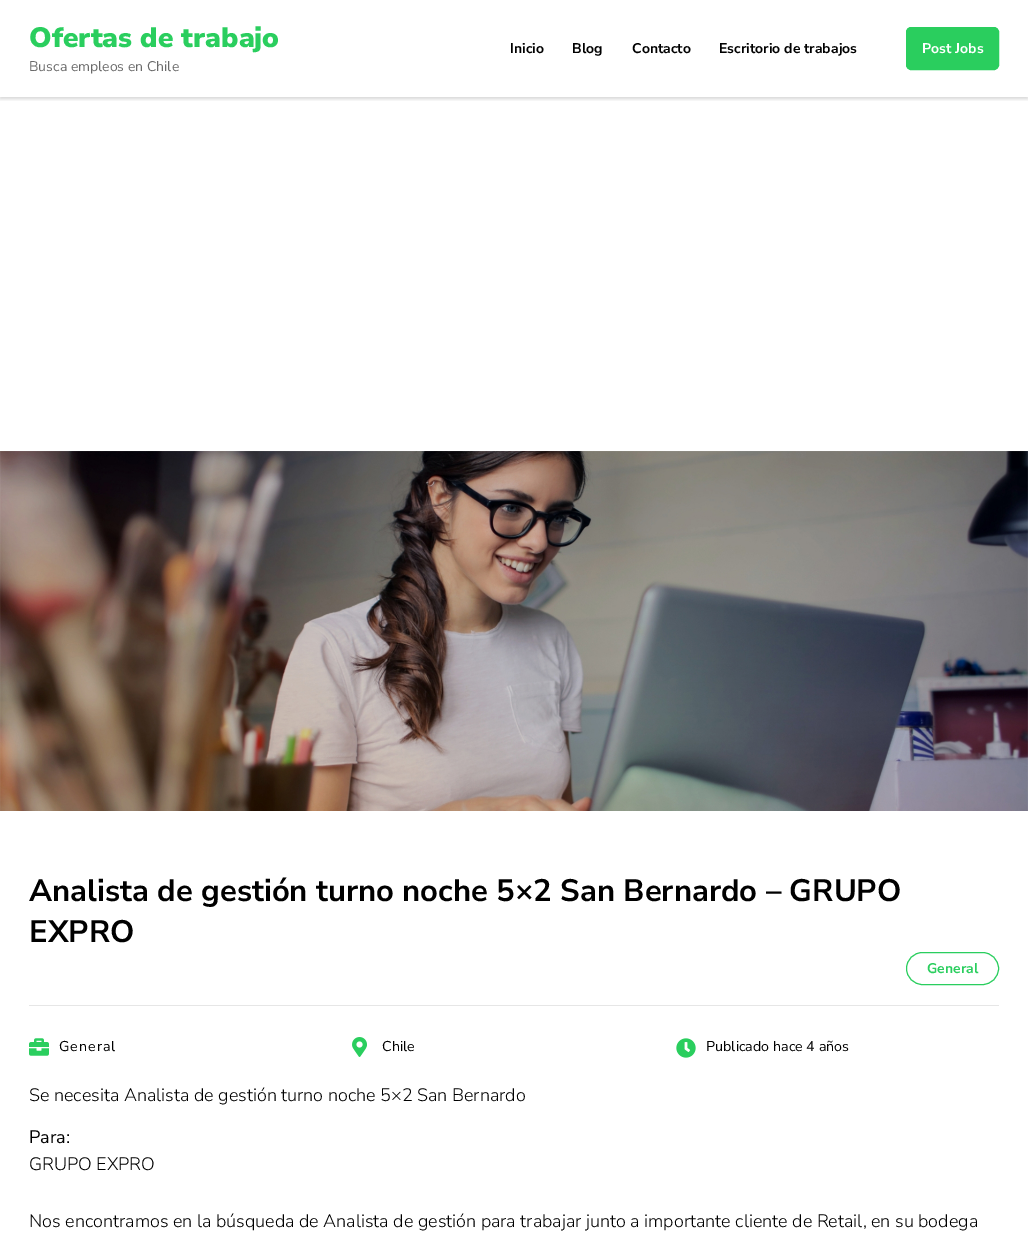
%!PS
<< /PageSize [1028 1244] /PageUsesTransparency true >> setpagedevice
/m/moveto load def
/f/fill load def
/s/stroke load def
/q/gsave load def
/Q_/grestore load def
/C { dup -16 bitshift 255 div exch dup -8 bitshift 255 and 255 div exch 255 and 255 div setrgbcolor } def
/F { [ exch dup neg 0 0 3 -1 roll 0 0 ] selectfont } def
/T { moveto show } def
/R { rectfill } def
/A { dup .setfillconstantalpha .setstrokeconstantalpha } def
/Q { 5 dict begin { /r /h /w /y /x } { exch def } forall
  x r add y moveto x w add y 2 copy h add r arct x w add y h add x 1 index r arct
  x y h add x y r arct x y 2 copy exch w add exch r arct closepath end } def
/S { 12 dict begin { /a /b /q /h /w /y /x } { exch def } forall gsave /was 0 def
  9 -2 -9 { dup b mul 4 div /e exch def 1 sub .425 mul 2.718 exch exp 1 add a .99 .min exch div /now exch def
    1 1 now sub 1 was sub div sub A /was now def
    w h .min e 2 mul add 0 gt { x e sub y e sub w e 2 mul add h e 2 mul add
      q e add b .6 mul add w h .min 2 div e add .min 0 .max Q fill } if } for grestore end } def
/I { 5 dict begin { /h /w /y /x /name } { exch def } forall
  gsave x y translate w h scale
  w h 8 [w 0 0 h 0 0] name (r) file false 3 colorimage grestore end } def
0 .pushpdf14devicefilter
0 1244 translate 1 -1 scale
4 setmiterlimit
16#FFFFFF C
0 0 1028 1244 R
q
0 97 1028 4 rectclip
16#000000 C
0 2 1028 97 0 2 .16 S
Q_
/NunitoSans-Black 28 F
16#2ACE5E C
(Ofertas de trabajo) 29 47 T
/NunitoSans-Regular 14 F
16#6A6A6A C
(Busca empleos en Chile) 29 71 T
/NunitoSans-Bold 14 F
16#000000 C
(Inicio) 510 53 T
(Blog) 572 53 T
(Contacto) 632 53 T
(Escritorio de trabajos) 719 53 T
16#2ACE5E C
906.5 27.5 92 42 4.5 Q q f Q_
s
16#FFFFFF C
(Post Jobs) 922 53 T
(1.rgb) 0 451 1028 360 I
16#E6E6E6 C
29 1005 970 1 R
/NunitoSans-Bold 31 F
16#000000 C
(Analista de gestión turno noche 5×2 San Bernardo – GRUPO) 29 901 T
(EXPRO) 29 942 T
16#2ACE5E C
906.5 952.5 92 32 16 Q s
/NunitoSans-Bold 14 F
(General) 927 973 T
(2.rgb) 29 1038 20 18 I
/NunitoSans-Regular 14.25 F
16#000000 C
59 1051 m 1 0 (General) ashow
(3.rgb) 352 1037 15 20 I
(Chile) 382 1051 T
(4.rgb) 676 1038 20 20 I
(Publicado hace 4 años) 706 1051 T
/NunitoSans-Light 18 F
(Se necesita Analista de gestión turno noche 5×2 San Bernardo) 29 1101 T
/NunitoSans-Regular 18 F
(Para:) 29 1143 T
/NunitoSans-Light 18 F
(GRUPO EXPRO) 29 1170 T
(Nos encontramos en la búsqueda de Analista de gestión para trabajar junto a importante cliente de Retail, en su bodega) 29 1227 T
.poppdf14devicefilter showpage
